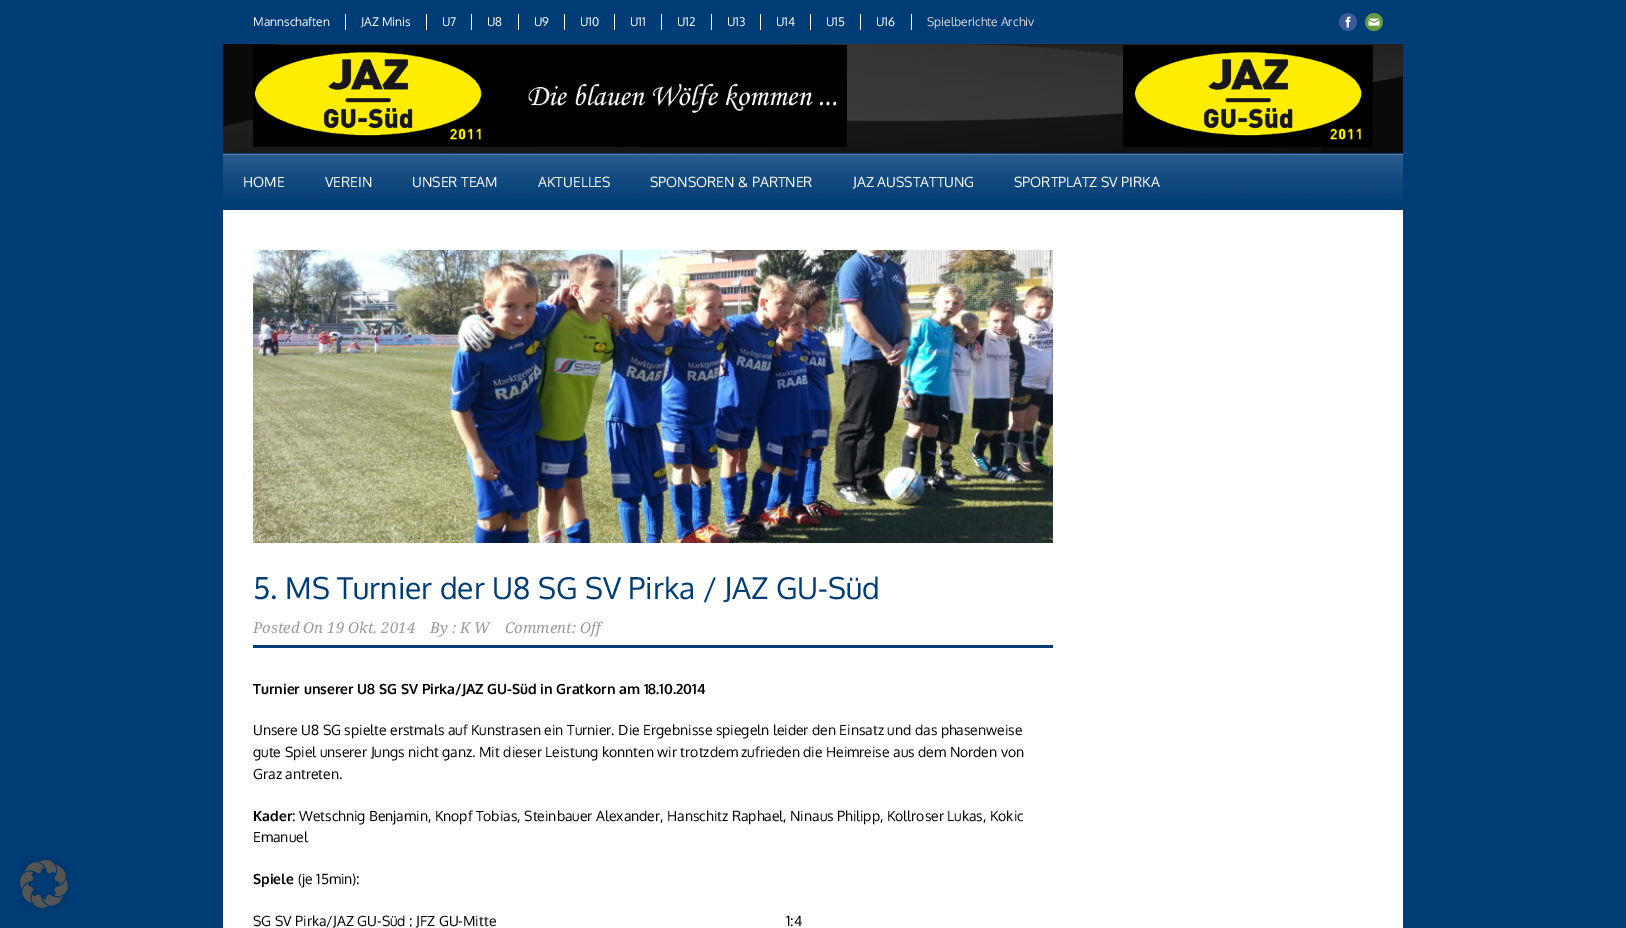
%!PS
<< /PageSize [1626 928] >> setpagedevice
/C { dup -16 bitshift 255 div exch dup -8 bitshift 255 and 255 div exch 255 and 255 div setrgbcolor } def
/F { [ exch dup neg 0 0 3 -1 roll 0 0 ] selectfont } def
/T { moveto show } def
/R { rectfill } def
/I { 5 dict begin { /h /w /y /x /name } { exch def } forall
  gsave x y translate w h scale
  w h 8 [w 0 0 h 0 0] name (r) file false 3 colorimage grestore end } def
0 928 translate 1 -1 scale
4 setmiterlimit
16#003C75 C
0 0 1626 928 R
(1.rgb) 17 857 54 54 I
/Oxygen-Regular 12 F
16#FFFFFF C
(Mannschaften) 253 26 T
345 14 1 16 R
(JAZ Minis) 361 26 T
426 14 1 16 R
(U7) 442 26 T
471 14 1 16 R
(U8) 487 26 T
518 14 1 16 R
(U9) 534 26 T
564 14 1 16 R
(U10) 580 26 T
614 14 1 16 R
(U11) 630 26 T
661 14 1 16 R
(U12) 677 26 T
711 14 1 16 R
(U13) 727 26 T
760 14 1 16 R
(U14) 776 26 T
810 14 1 16 R
(U15) 826 26 T
860 14 1 16 R
(U16) 876 26 T
911 14 1 16 R
16#DDDDDD C
(Spielberichte Archiv) 927 26 T
(2.rgb) 1339 13 18 18 I
(3.rgb) 1365 13 18 18 I
16#0A0A0A C
223 44 1180 109 R
(4.rgb) 223 44 1180 109 I
(5.rgb) 253 45 594 102 I
(6.rgb) 1123 45 250 102 I
(7.rgb) 1180 154 223 45 I
(8.rgb) 223 154 82 45 I
/Oxygen-Regular 14 F
16#FFFFFF C
(HOME) 243 187 T
(9.rgb) 305 154 87 45 I
(VEREIN) 325 187 T
(10.rgb) 392 154 126 45 I
(UNSER TEAM) 412 187 T
(11.rgb) 518 154 112 45 I
(AKTUELLES) 538 187 T
(12.rgb) 630 154 203 45 I
(SPONSOREN & PARTNER) 650 187 T
(13.rgb) 833 154 161 45 I
(JAZ AUSSTATTUNG) 853 187 T
(14.rgb) 994 154 186 45 I
(SPORTPLATZ SV PIRKA) 1014 187 T
223 210 1180 718 R
(15.rgb) 253 250 800 293 I
/Oxygen-Regular 30 F
16#003C75 C
(5. MS Turnier der U8 SG SV Pirka / JAZ GU-Süd) 253 599 T
253 645 800 3 R
/DroidSerif-Italic 15 F
16#9B9B9B C
(Posted On 19 Okt. 2014) 253 633 T
(By : K W) 430 633 T
(Comment: Off) 505 633 T
/Oxygen-Bold 14 F
16#000000 C
(Turnier unserer U8 SG SV Pirka/JAZ GU-Süd in Gratkorn am 18.10.2014) 253 694 T
/Oxygen-Regular 14 F
(Unsere U8 SG spielte erstmals auf Kunstrasen ein Turnier. Die Ergebnisse spiegeln leider den Einsatz und das phasenweise) 253 735 T
(gute Spiel unserer Jungs nicht ganz. Mit dieser Leistung konnten wir trotzdem zufrieden die Heimreise aus dem Norden von) 253 757 T
(Graz antreten.) 253 779 T
/Oxygen-Bold 14 F
(Kader) 253 821 T
/Oxygen-Regular 14 F
(: Wetschnig Benjamin, Knopf Tobias, Steinbauer Alexander, Hanschitz Raphael, Ninaus Philipp, Kollroser Lukas, Kokic) 292 821 T
(Emanuel) 253 842 T
/Oxygen-Bold 14 F
(Spiele) 253 884 T
/Oxygen-Regular 14 F
(\(je 15min\):) 298 884 T
(SG SV Pirka/JAZ GU-Süd : JFZ GU-Mitte) 253 926 T
(1:4) 786 926 T
showpage
